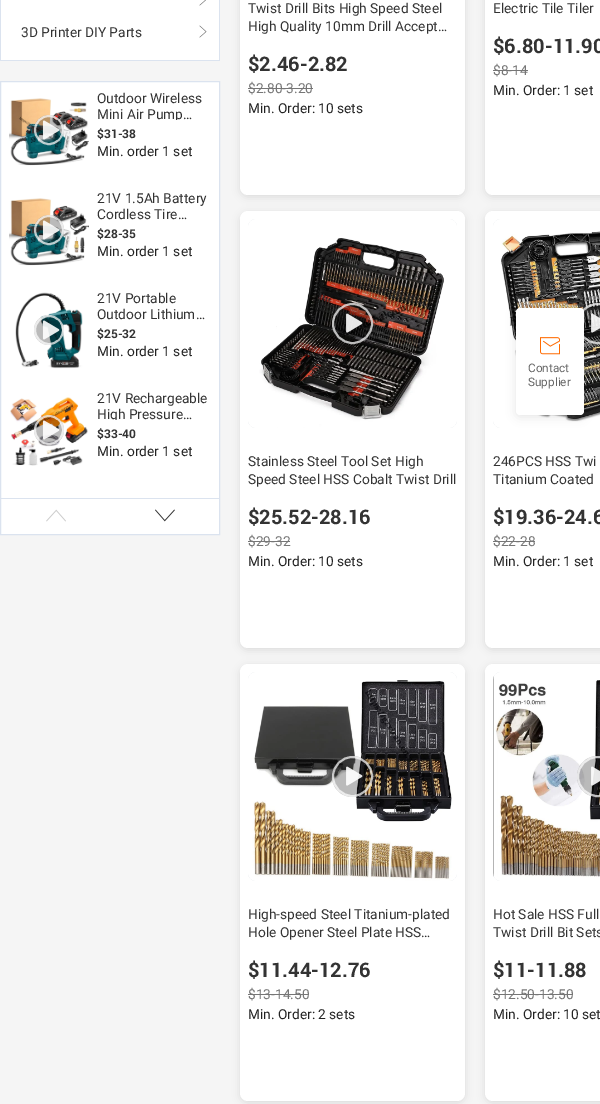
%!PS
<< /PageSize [600 1104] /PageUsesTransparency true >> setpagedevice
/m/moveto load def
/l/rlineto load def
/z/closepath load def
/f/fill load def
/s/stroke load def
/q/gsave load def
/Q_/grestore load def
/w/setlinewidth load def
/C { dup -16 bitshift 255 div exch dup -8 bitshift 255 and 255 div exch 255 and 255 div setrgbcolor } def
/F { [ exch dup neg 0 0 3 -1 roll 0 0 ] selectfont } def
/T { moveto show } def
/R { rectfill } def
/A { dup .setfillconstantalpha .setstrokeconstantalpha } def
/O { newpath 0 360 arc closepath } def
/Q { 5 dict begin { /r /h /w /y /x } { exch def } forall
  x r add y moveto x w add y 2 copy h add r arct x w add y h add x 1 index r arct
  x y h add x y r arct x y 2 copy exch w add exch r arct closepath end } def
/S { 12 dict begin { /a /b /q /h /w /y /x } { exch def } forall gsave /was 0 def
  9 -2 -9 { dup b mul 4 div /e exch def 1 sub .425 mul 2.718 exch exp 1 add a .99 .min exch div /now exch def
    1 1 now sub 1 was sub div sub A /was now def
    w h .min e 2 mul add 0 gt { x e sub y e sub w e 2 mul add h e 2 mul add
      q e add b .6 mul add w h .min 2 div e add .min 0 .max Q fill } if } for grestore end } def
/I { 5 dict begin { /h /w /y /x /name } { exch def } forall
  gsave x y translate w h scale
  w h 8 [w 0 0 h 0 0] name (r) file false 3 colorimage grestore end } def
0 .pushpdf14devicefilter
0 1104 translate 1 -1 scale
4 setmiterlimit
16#F5F5F5 C
0 0 600 1104 R
16#FFFFFF C
1 0 218 60 R
16#DBE3EF C
219 0 1 61 R
0 60 220 1 R
0 0 1 61 R
(1.rgb) 199 0 7 6 I
/Roboto-Regular 14 F
16#333333 C
(3D Printer DIY Parts) 21 37 T
(2.rgb) 199 25 8 13 I
16#FFFFFF C
.5 81.5 m 219 0 l 0 453 l -219 0 l z q f Q_
16#DBE3EF C
s
(3.rgb) 9 98 80 68 I
0.27 A
16#000000 C
49 130 15 O f
0.72 A
16#FFFFFF C
2 w
49 130 14 O s
1 A
(4.rgb) 42 120 18 20 I
16#333333 C
(Outdoor Wireless) 97 103 T
q
97 90 114 30 rectclip
(Mini Air Pump…) 97 119 T
Q_
/Roboto-Bold 12 F
($31-38) 97 138 T
/Roboto-Regular 14 F
16#222222 C
(Min. order 1 set) 97 156 T
(5.rgb) 9 198 80 68 I
0.27 A
16#000000 C
49 230 15 O f
0.72 A
16#FFFFFF C
49 230 14 O s
1 A
(6.rgb) 42 220 18 20 I
16#333333 C
(21V 1.5Ah Battery) 97 203 T
(Cordless Tire…) 97 219 T
/Roboto-Bold 12 F
($28-35) 97 238 T
/Roboto-Regular 14 F
16#222222 C
(Min. order 1 set) 97 256 T
(7.rgb) 15 292 68 77 I
0.27 A
16#000000 C
49 330 15 O f
0.72 A
16#FFFFFF C
49 330 14 O s
1 A
(8.rgb) 42 320 18 20 I
16#333333 C
(21V Portable) 97 303 T
(Outdoor Lithium…) 97 319 T
/Roboto-Bold 12 F
($25-32) 97 338 T
/Roboto-Regular 14 F
16#222222 C
(Min. order 1 set) 97 356 T
(9.rgb) 10 397 78 69 I
0.27 A
16#000000 C
49 430 15 O f
0.72 A
16#FFFFFF C
49 430 14 O s
1 A
(10.rgb) 42 420 18 20 I
16#333333 C
(21V Rechargeable) 97 403 T
q
97 390 114 30 rectclip
(High Pressure…) 97 419 T
Q_
/Roboto-Bold 12 F
($33-40) 97 438 T
/Roboto-Regular 14 F
16#222222 C
(Min. order 1 set) 97 456 T
16#DBE3EF C
1 498 218 1 R
(11.rgb) 46 509 20 13 I
(12.rgb) 155 509 20 13 I
16#000000 C
240 -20 225 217 8 4 .1 S
16#FFFFFF C
240 -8 225 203 8 Q f
16#333333 C
(Twist Drill Bits High Speed Steel) 248 13 T
(High Quality 10mm Drill Accept…) 248 31 T
/Roboto-Bold 20 F
($2.46-2.82) 248 71 T
/Roboto-Regular 14 F
16#767676 C
($2.80-3.20) 248 93 T
248 88 65 1 R
16#222222 C
(Min. Order: 10 sets) 248 113 T
16#000000 C
485 -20 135 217 8 4 .1 S
16#FFFFFF C
485 -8 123 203 8 Q f
16#333333 C
(Electric Tile Tiler) 493 13 T
/Roboto-Bold 20 F
($6.80-11.90) 493 53 T
/Roboto-Regular 14 F
16#767676 C
($8-14) 493 75 T
493 70 35 1 R
16#222222 C
(Min. Order: 1 set) 493 95 T
16#000000 C
240 213 225 437 8 4 .1 S
16#FFFFFF C
240 211 225 437 8 Q f
(13.rgb) 248 219 209 209 I
0.27 A
16#000000 C
352.5 323.5 20.5 O f
0.72 A
16#FFFFFF C
352.5 323.5 19.5 O s
1 A
(14.rgb) 346 313 17 20 I
16#333333 C
(Stainless Steel Tool Set High) 248 466 T
(Speed Steel HSS Cobalt Twist Drill) 248 484 T
/Roboto-Bold 20 F
($25.52-28.16) 248 524 T
/Roboto-Regular 14 F
16#767676 C
($29-32) 248 546 T
248 541 42 1 R
16#222222 C
(Min. Order: 10 sets) 248 566 T
16#000000 C
485 213 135 437 8 4 .1 S
16#FFFFFF C
485 211 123 437 8 Q f
(15.rgb) 493 219 107 209 I
0.27 A
16#000000 C
597.5 323.5 20.5 O f
0.72 A
16#FFFFFF C
597.5 323.5 19.5 O s
1 A
(16.rgb) 591 313 9 20 I
16#333333 C
(246PCS HSS Twi) 493 466 T
(Titanium Coated) 493 484 T
/Roboto-Bold 20 F
($19.36-24.6) 493 524 T
/Roboto-Regular 14 F
16#767676 C
($22-28) 493 546 T
493 541 42 1 R
16#222222 C
(Min. Order: 1 set) 493 566 T
16#000000 C
240 666 225 437 8 4 .1 S
16#FFFFFF C
240 664 225 437 8 Q f
(17.rgb) 248 672 209 209 I
0.27 A
16#000000 C
352.5 776.5 20.5 O f
0.72 A
16#FFFFFF C
352.5 776.5 19.5 O s
1 A
(18.rgb) 346 766 17 20 I
16#333333 C
(High-speed Steel Titanium-plated) 248 919 T
(Hole Opener Steel Plate HSS…) 248 937 T
/Roboto-Bold 20 F
($11.44-12.76) 248 977 T
/Roboto-Regular 14 F
16#767676 C
($13-14.50) 248 999 T
248 994 61 1 R
16#222222 C
(Min. Order: 2 sets) 248 1019 T
16#000000 C
485 666 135 437 8 4 .1 S
16#FFFFFF C
485 664 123 437 8 Q f
(19.rgb) 493 672 107 209 I
0.27 A
16#000000 C
597.5 776.5 20.5 O f
0.72 A
16#FFFFFF C
597.5 776.5 19.5 O s
1 A
(20.rgb) 591 766 9 20 I
16#333333 C
(Hot Sale HSS Full) 493 919 T
(Twist Drill Bit Sets) 493 937 T
/Roboto-Bold 20 F
($11-11.88) 493 977 T
/Roboto-Regular 14 F
16#767676 C
($12.50-13.50) 493 999 T
493 994 80 1 R
16#222222 C
(Min. Order: 10 set) 493 1019 T
16#000000 C
516 310 68 107 4 5 .1 S
16#FFFFFF C
516 308 68 107 4 Q f
(21.rgb) 540 337 20 18 I
/Roboto-Regular 12 F
16#666666 C
(Contact) 528 372 T
(Supplier) 528 386 T
.poppdf14devicefilter showpage
